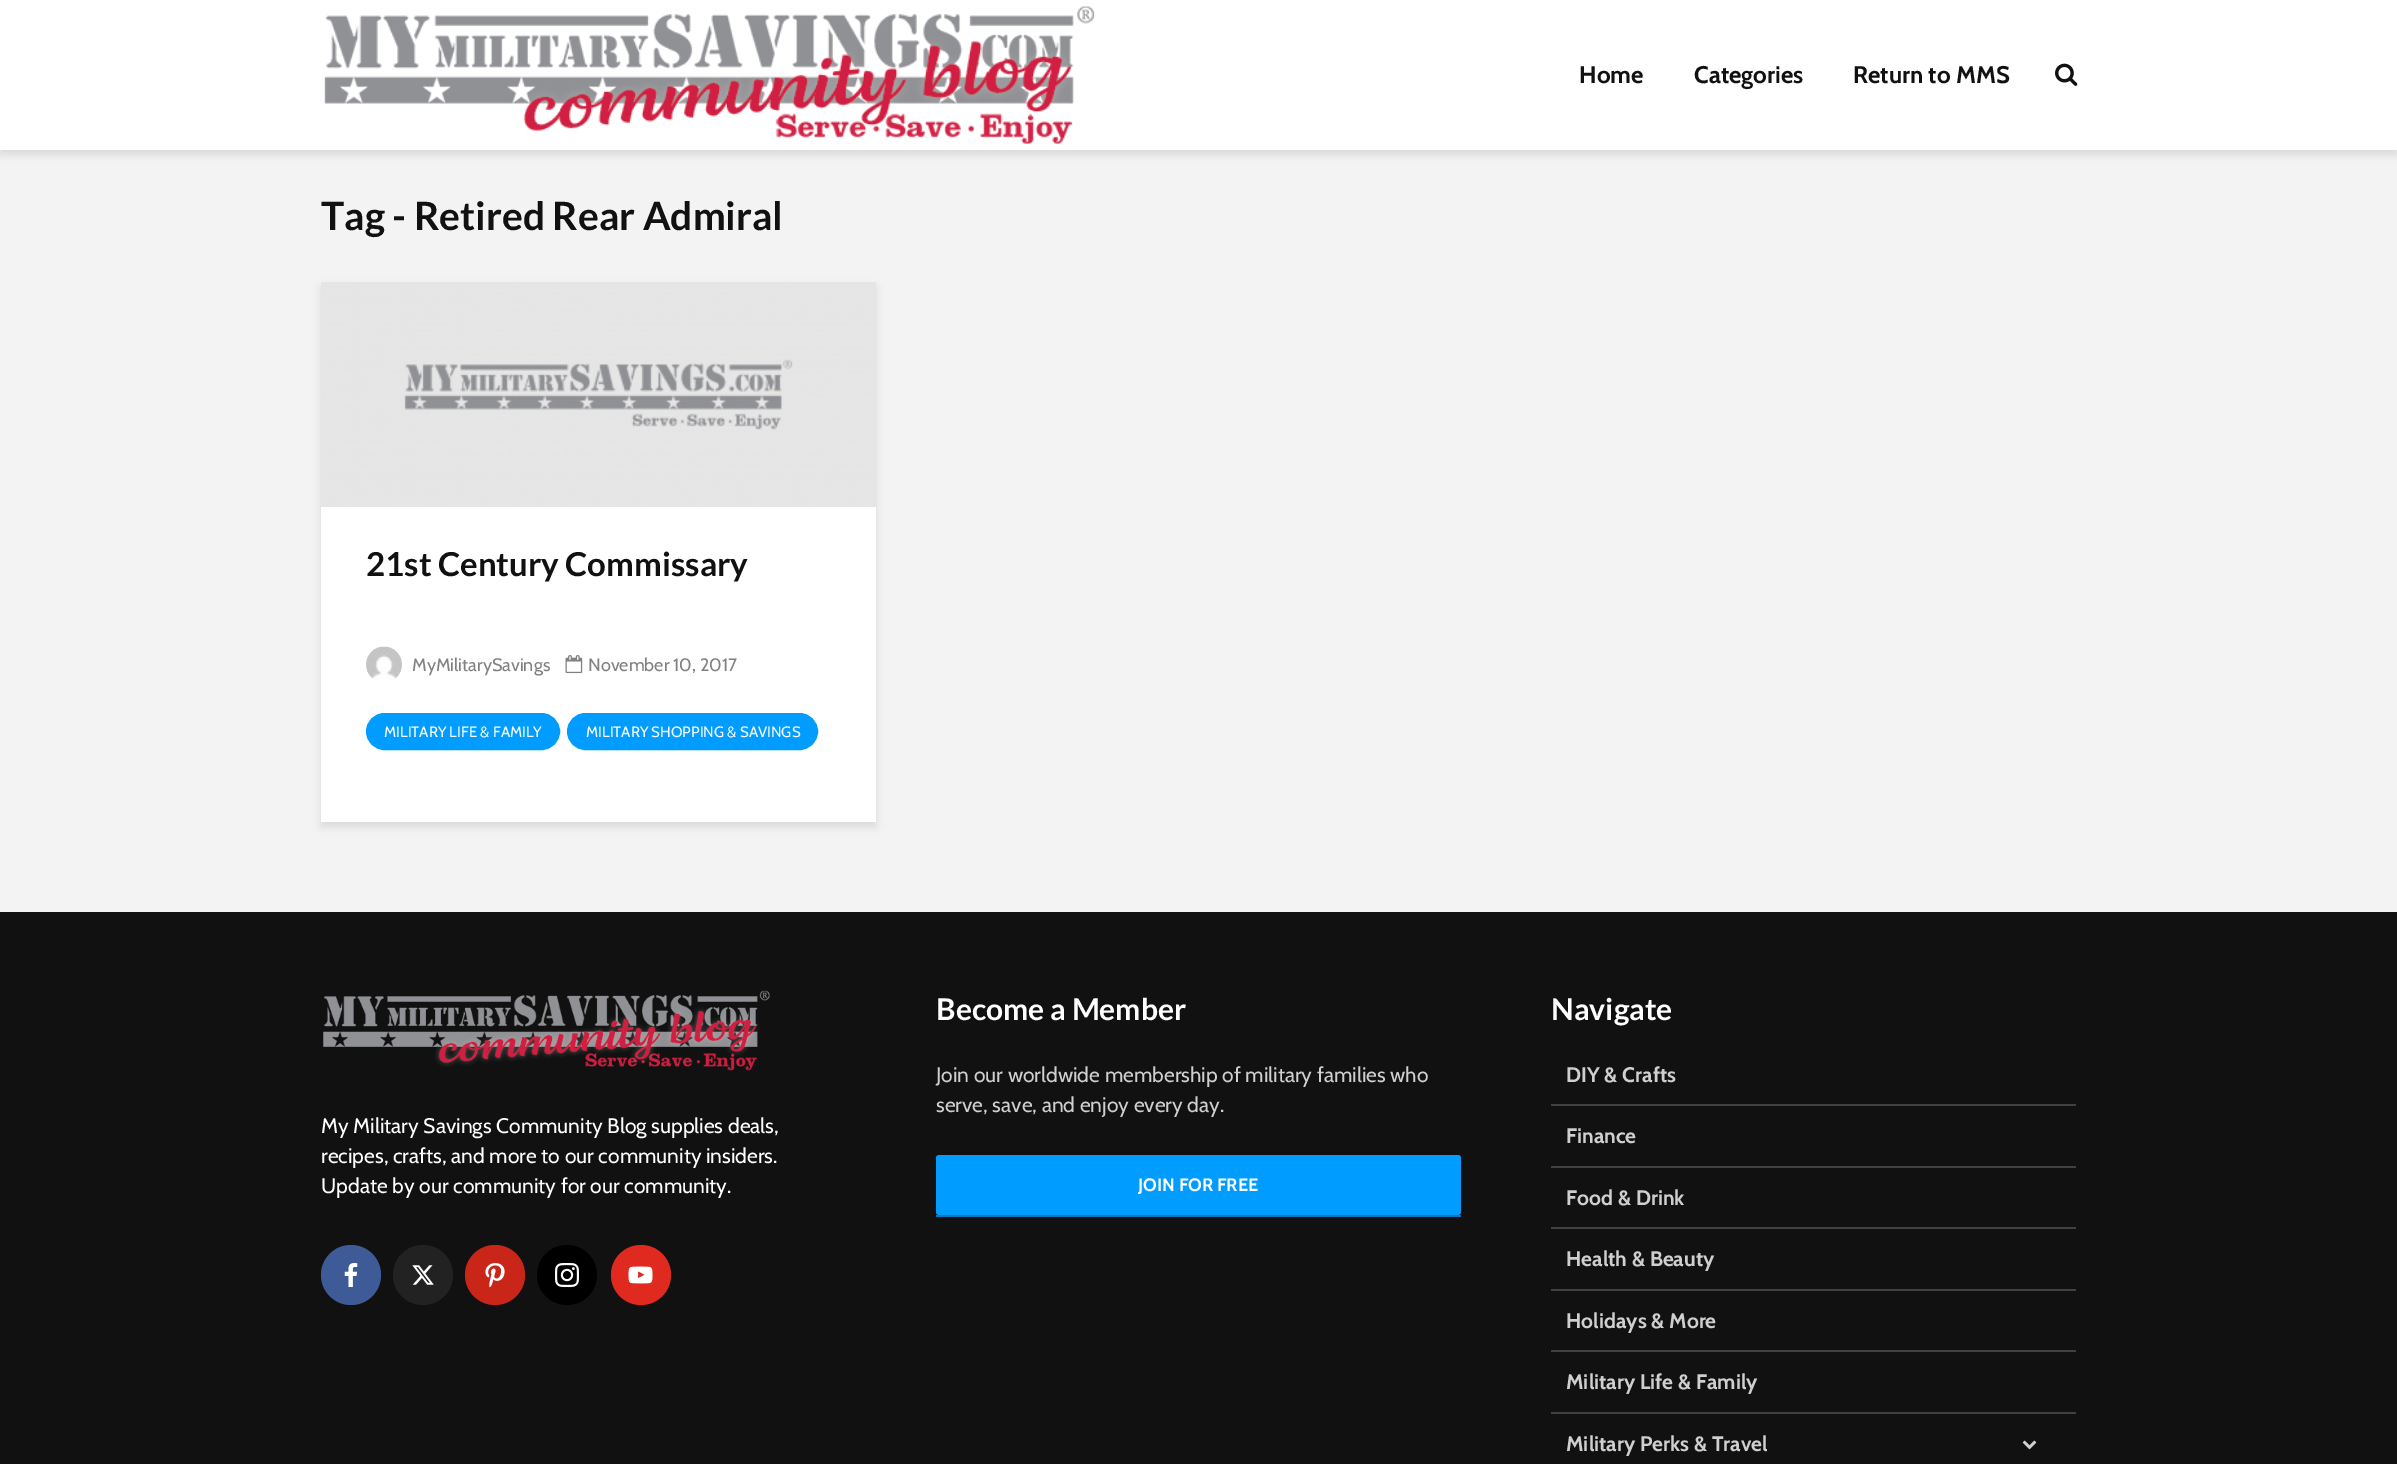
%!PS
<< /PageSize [2397 1464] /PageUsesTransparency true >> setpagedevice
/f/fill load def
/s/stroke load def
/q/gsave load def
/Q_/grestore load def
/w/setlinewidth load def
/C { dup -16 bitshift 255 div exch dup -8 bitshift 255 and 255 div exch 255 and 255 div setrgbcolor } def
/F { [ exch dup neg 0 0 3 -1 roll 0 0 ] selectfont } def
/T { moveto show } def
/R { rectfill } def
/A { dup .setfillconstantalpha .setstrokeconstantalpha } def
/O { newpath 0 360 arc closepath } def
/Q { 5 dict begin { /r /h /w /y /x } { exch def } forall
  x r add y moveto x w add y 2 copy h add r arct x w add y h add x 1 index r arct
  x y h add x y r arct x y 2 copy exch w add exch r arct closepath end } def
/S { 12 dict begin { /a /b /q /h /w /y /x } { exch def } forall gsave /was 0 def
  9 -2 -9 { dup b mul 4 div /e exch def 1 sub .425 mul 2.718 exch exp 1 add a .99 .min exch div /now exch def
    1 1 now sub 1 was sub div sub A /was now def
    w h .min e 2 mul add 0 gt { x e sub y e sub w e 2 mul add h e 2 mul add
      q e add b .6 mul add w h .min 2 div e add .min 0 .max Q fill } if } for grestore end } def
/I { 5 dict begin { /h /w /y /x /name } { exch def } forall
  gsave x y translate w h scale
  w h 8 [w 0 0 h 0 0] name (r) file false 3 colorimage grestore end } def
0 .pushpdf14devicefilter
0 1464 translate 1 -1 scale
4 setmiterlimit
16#F3F3F3 C
0 0 2397 1464 R
16#000101 C
0 5 2397 150 0 4 .1 S
16#FFFFFF C
0 0 2397 150 R
(1.rgb) 324 6 771 138 I
/Cabin-Bold 24 F
16#111111 C
(Home) 1579 83 T
(Categories) 1694 83 T
(Return to MMS) 1853 83 T
(2.rgb) 2055 63 23 23 I
/Lato-Bold 39 F
(Tag - Retired Rear Admiral) 321 230 T
16#000101 C
321 287 555 540 0 4 .1 S
16#FFFFFF C
321 507 555 315 R
(3.rgb) 321 282 555 225 I
/Lato-Bold 33 F
16#111111 C
(21st Century Commissary) 366 576 T
(4.rgb) 366 646 36 35 I
/Cabin-Regular 18 F
16#818181 C
(MyMilitarySavings) 412 671 T
(5.rgb) 565 655 18 19 I
(November 10, 2017) 588 671 T
16#009CFF C
367 714 192 35 17.5 Q q f Q_
2 w
s
/Cabin-Regular 15 F
16#FFFFFF C
(MILITARY LIFE & FAMILY) 384 737 T
16#009CFF C
568 714 249 35 17.5 Q q f Q_
s
16#FFFFFF C
(MILITARY SHOPPING & SAVINGS) 586 737 T
16#111111 C
0 912 2397 552 R
(6.rgb) 323 990 447 81 I
/Cabin-Regular 21 F
16#FFFFFF C
(My Military Savings Community Blog supplies deals,) 321 1133 T
(recipes, crafts, and more to our community insiders.) 321 1163 T
(Update by our community for our community.) 321 1193 T
16#3E5B98 C
351 1275 30 O f
(7.rgb) 344 1263 14 24 I
16#222222 C
423 1275 30 O f
(8.rgb) 412 1265 22 20 I
16#C92619 C
495 1275 30 O f
(9.rgb) 485 1263 20 24 I
16#000000 C
567 1275 30 O f
(10.rgb) 555 1263 24 24 I
16#E02A20 C
641 1275 30 O f
(11.rgb) 628 1266 25 18 I
/Lato-Bold 30 F
16#FFFFFF C
(Become a Member) 936 1020 T
16#0380CF C
936 1215 525 2 R
/Cabin-Regular 21 F
16#CFCFCF C
(Join our worldwide membership of military families who) 936 1082 T
(serve, save, and enjoy every day.) 936 1112 T
16#000000 C
936 1160 525 60 3 4 .1 S
16#009CFF C
936 1155 525 60 3 Q f
/Cabin-Bold 18 F
16#FFFFFF C
(JOIN FOR FREE) 1138 1191 T
/Lato-Bold 30 F
(Navigate) 1551 1020 T
16#414141 C
1551 1104 525 2 R
/Cabin-Bold 21 F
16#CFCFCF C
(DIY & Crafts) 1566 1082 T
16#414141 C
1551 1166 525 2 R
16#CFCFCF C
(Finance) 1566 1143 T
16#414141 C
1551 1227 525 2 R
16#CFCFCF C
(Food & Drink) 1566 1205 T
16#414141 C
1551 1289 525 2 R
16#CFCFCF C
(Health & Beauty) 1566 1266 T
16#414141 C
1551 1350 525 2 R
16#CFCFCF C
(Holidays & More) 1566 1328 T
16#414141 C
1551 1412 525 2 R
16#CFCFCF C
(Military Life & Family) 1566 1389 T
(Military Perks & Travel) 1566 1451 T
(12.rgb) 2022 1440 15 10 I
.poppdf14devicefilter showpage
